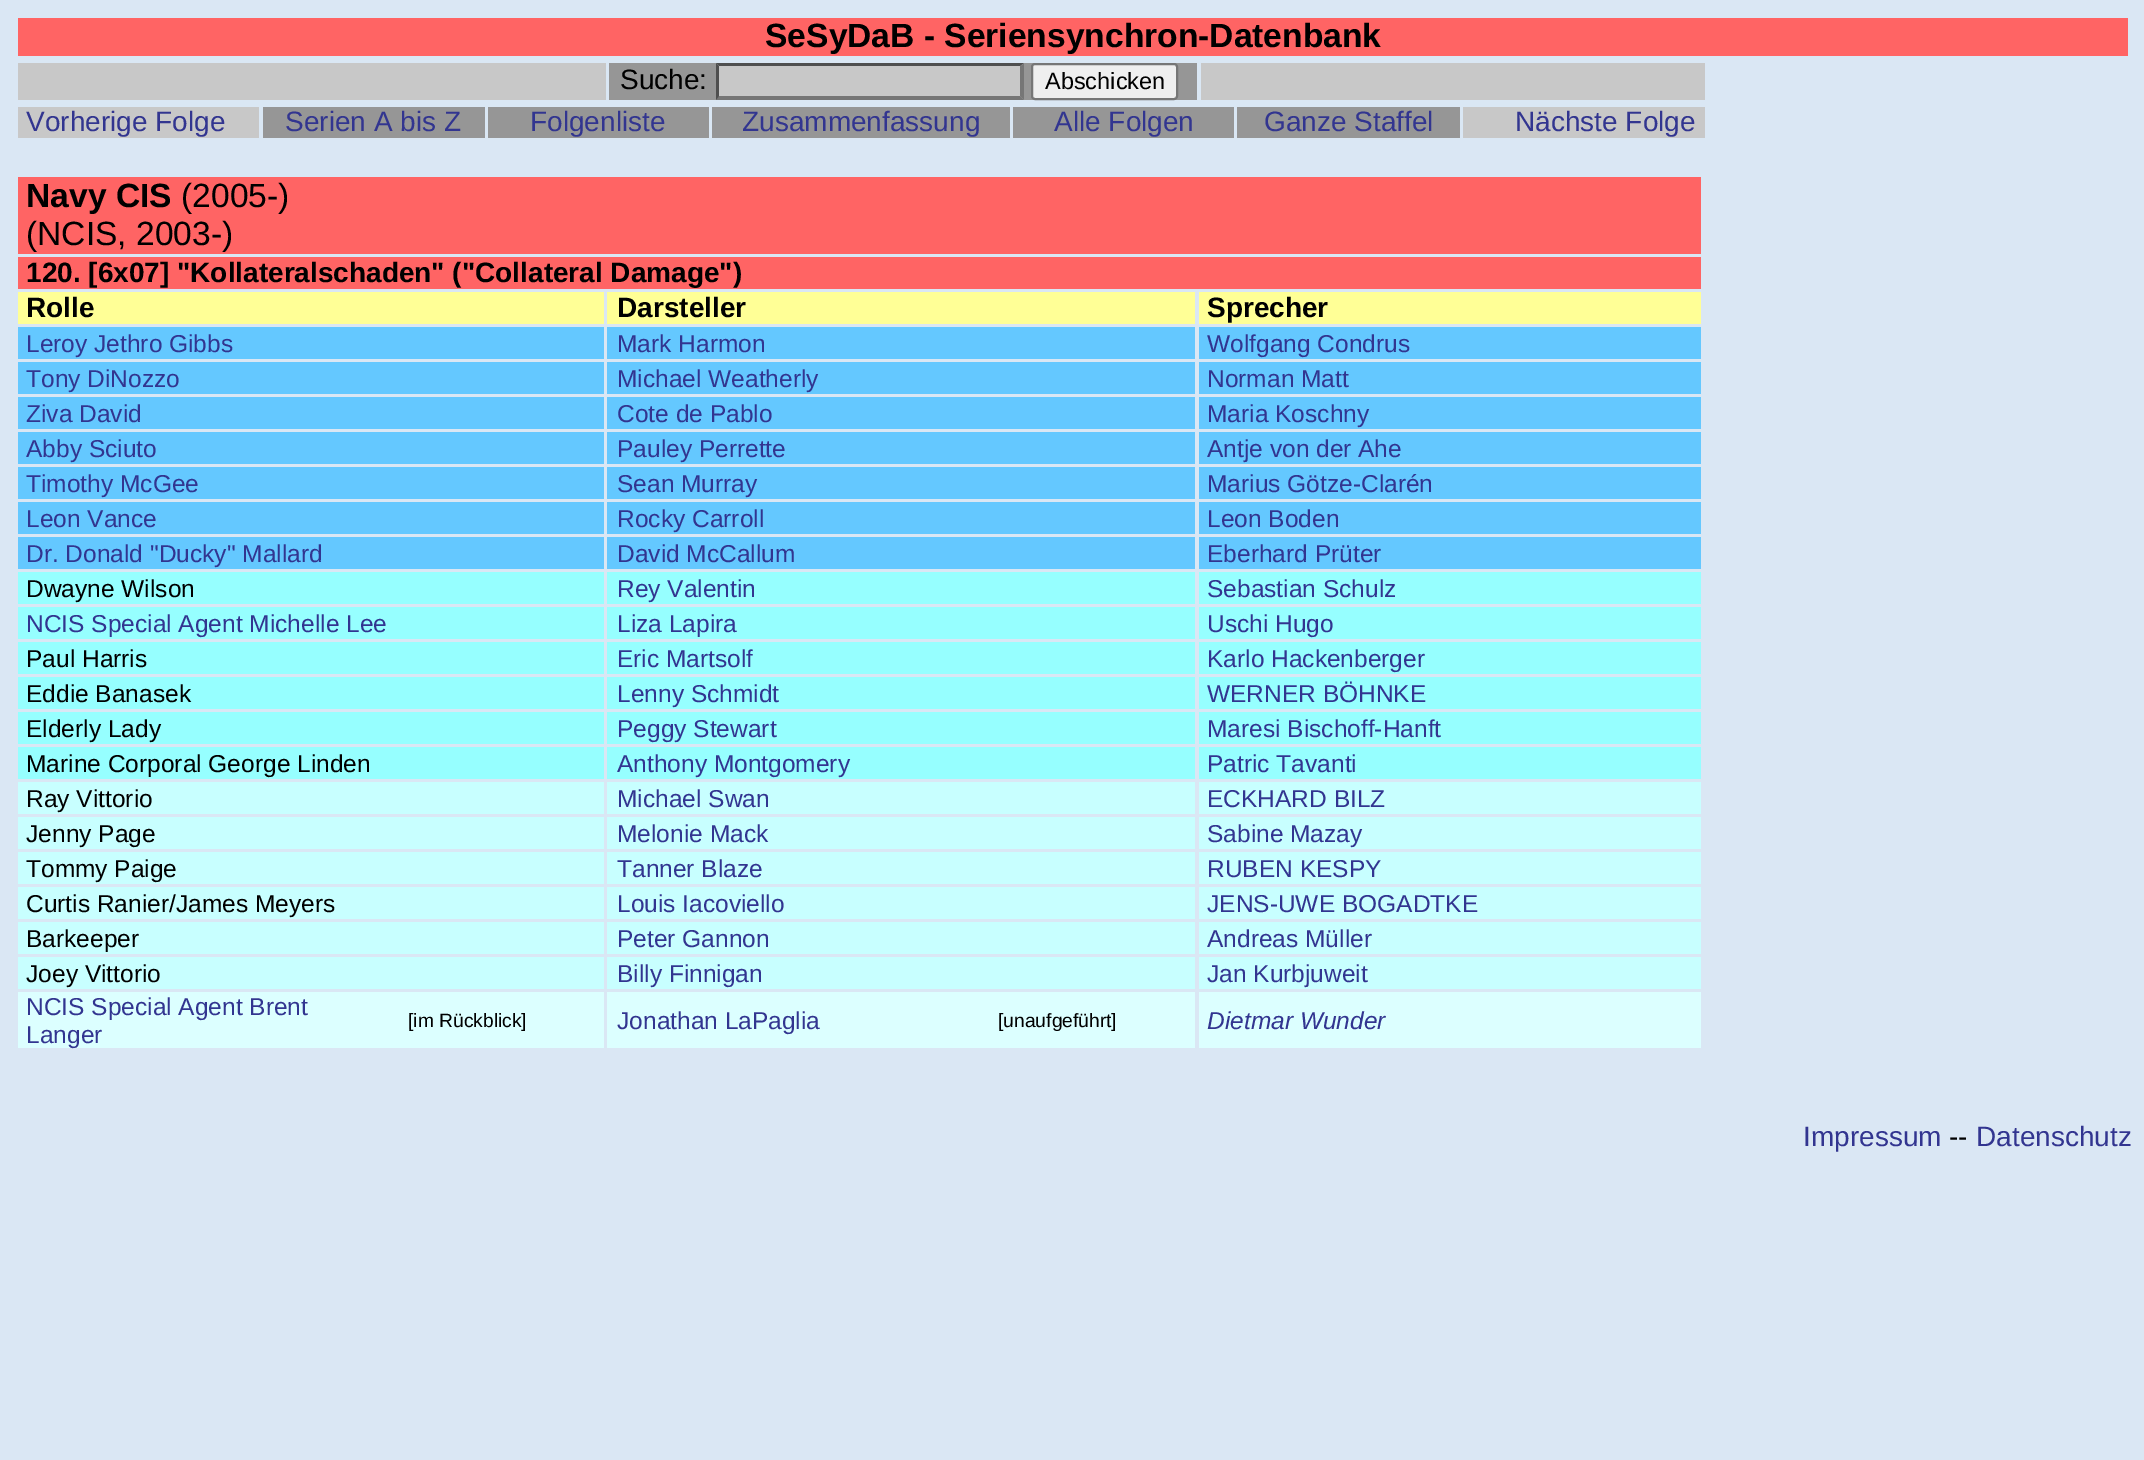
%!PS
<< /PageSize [2144 1460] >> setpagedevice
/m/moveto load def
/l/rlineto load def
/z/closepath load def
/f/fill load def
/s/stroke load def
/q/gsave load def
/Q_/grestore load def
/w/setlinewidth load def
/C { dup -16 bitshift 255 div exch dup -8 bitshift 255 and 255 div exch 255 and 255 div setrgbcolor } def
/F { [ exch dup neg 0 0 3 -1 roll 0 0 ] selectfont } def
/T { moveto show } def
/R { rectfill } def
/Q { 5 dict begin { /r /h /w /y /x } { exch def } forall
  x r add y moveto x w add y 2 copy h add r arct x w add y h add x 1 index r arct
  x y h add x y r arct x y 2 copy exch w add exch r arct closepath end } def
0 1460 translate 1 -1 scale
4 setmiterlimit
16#DAE7F4 C
0 0 2144 1460 R
16#FF6464 C
18 18 2110 38 R
/LiberationSans-Bold 33.6 F
16#000000 C
(SeSyDaB - Seriensynchron-Datenbank) 765 47 T
16#C8C8C8 C
18 63 588 37 R
16#969696 C
609 63 588 37 R
/LiberationSans-Regular 28 F
16#000000 C
(Suche:) 620 89 T
16#C8C8C8 C
716 63 308 37 R
16#4F4F4F C
716 63 m 308 0 l -4 3 l -301 0 l z f
16#767676 C
1024 63 m 0 37 l -4 -4 l 0 -29.5 l z f
1024 100 m -308 0 l 3 -4 l 301 0 l z f
16#4F4F4F C
716 100 m 0 -37 l 3 3.5 l 0 29.5 l z f
16#EFEFEF C
1032 64 145 35 3 Q q f Q_
16#767676 C
2 w
s
/LiberationSans-Regular 23.5 F
16#000000 C
(Abschicken) 1045 89 T
16#C8C8C8 C
1201 63 504 37 R
18 107 241 31 R
/LiberationSans-Regular 28 F
16#323590 C
(Vorherige Folge) 26 131 T
16#969696 C
263 107 222 31 R
16#323590 C
(Serien A bis Z) 285 131 T
16#969696 C
488 107 221 31 R
16#323590 C
(Folgenliste) 530 131 T
16#969696 C
712 107 298 31 R
16#323590 C
(Zusammenfassung) 742 131 T
16#969696 C
1013 107 221 31 R
16#323590 C
(Alle Folgen) 1054 131 T
16#969696 C
1237 107 223 31 R
16#323590 C
(Ganze Staffel) 1264 131 T
16#C8C8C8 C
1463 107 242 31 R
16#323590 C
(Nächste Folge) 1515 131 T
16#FF6464 C
18 177 1683 77 R
/LiberationSans-Bold 33.6 F
16#000000 C
(Navy CIS) 26 207 T
/LiberationSans-Regular 33.6 F
(\(2005-\)) 181 207 T
(\(NCIS, 2003-\)) 26 245 T
16#FF6464 C
18 257 1683 32 R
/LiberationSans-Bold 28 F
16#000000 C
(120. [6x07] "Kollateralschaden" \("Collateral Damage"\)) 26 282 T
16#FFFF96 C
18 292 586 32 R
16#000000 C
(Rolle) 26 317 T
16#FFFF96 C
607 292 588 32 R
16#000000 C
(Darsteller) 617 317 T
16#FFFF96 C
1199 292 502 32 R
16#000000 C
(Sprecher) 1207 317 T
16#64C8FF C
18 327 586 32 R
/LiberationSans-Regular 24.5 F
16#323590 C
(Leroy Jethro Gibbs) 26 352 T
16#64C8FF C
607 327 588 32 R
16#323590 C
(Mark Harmon) 617 352 T
16#64C8FF C
1199 327 502 32 R
16#323590 C
(Wolfgang Condrus) 1207 352 T
16#64C8FF C
18 362 586 32 R
16#323590 C
(Tony DiNozzo) 26 387 T
16#64C8FF C
607 362 588 32 R
16#323590 C
(Michael Weatherly) 617 387 T
16#64C8FF C
1199 362 502 32 R
16#323590 C
(Norman Matt) 1207 387 T
16#64C8FF C
18 397 586 32 R
16#323590 C
(Ziva David) 26 422 T
16#64C8FF C
607 397 588 32 R
16#323590 C
(Cote de Pablo) 617 422 T
16#64C8FF C
1199 397 502 32 R
16#323590 C
(Maria Koschny) 1207 422 T
16#64C8FF C
18 432 586 32 R
16#323590 C
(Abby Sciuto) 26 457 T
16#64C8FF C
607 432 588 32 R
16#323590 C
(Pauley Perrette) 617 457 T
16#64C8FF C
1199 432 502 32 R
16#323590 C
(Antje von der Ahe) 1207 457 T
16#64C8FF C
18 467 586 32 R
16#323590 C
(Timothy McGee) 26 492 T
16#64C8FF C
607 467 588 32 R
16#323590 C
(Sean Murray) 617 492 T
16#64C8FF C
1199 467 502 32 R
16#323590 C
(Marius Götze-Clarén) 1207 492 T
16#64C8FF C
18 502 586 32 R
16#323590 C
(Leon Vance) 26 527 T
16#64C8FF C
607 502 588 32 R
16#323590 C
(Rocky Carroll) 617 527 T
16#64C8FF C
1199 502 502 32 R
16#323590 C
(Leon Boden) 1207 527 T
16#64C8FF C
18 537 586 32 R
16#323590 C
(Dr. Donald "Ducky" Mallard) 26 562 T
16#64C8FF C
607 537 588 32 R
16#323590 C
(David McCallum) 617 562 T
16#64C8FF C
1199 537 502 32 R
16#323590 C
(Eberhard Prüter) 1207 562 T
16#96FFFF C
18 572 586 32 R
16#000000 C
(Dwayne Wilson) 26 597 T
16#96FFFF C
607 572 588 32 R
16#323590 C
(Rey Valentin) 617 597 T
16#96FFFF C
1199 572 502 32 R
16#323590 C
(Sebastian Schulz) 1207 597 T
16#96FFFF C
18 607 586 32 R
16#323590 C
(NCIS Special Agent Michelle Lee) 26 632 T
16#96FFFF C
607 607 588 32 R
16#323590 C
(Liza Lapira) 617 632 T
16#96FFFF C
1199 607 502 32 R
16#323590 C
(Uschi Hugo) 1207 632 T
16#96FFFF C
18 642 586 32 R
16#000000 C
(Paul Harris) 26 667 T
16#96FFFF C
607 642 588 32 R
16#323590 C
(Eric Martsolf) 617 667 T
16#96FFFF C
1199 642 502 32 R
16#323590 C
(Karlo Hackenberger) 1207 667 T
16#96FFFF C
18 677 586 32 R
16#000000 C
(Eddie Banasek) 26 702 T
16#96FFFF C
607 677 588 32 R
16#323590 C
(Lenny Schmidt) 617 702 T
16#96FFFF C
1199 677 502 32 R
16#323590 C
(WERNER BÖHNKE) 1207 702 T
16#96FFFF C
18 712 586 32 R
16#000000 C
(Elderly Lady) 26 737 T
16#96FFFF C
607 712 588 32 R
16#323590 C
(Peggy Stewart) 617 737 T
16#96FFFF C
1199 712 502 32 R
16#323590 C
(Maresi Bischoff-Hanft) 1207 737 T
16#96FFFF C
18 747 586 32 R
16#000000 C
(Marine Corporal George Linden) 26 772 T
16#96FFFF C
607 747 588 32 R
16#323590 C
(Anthony Montgomery) 617 772 T
16#96FFFF C
1199 747 502 32 R
16#323590 C
(Patric Tavanti) 1207 772 T
16#C8FFFF C
18 782 586 32 R
16#000000 C
(Ray Vittorio) 26 807 T
16#C8FFFF C
607 782 588 32 R
16#323590 C
(Michael Swan) 617 807 T
16#C8FFFF C
1199 782 502 32 R
16#323590 C
(ECKHARD BILZ) 1207 807 T
16#C8FFFF C
18 817 586 32 R
16#000000 C
(Jenny Page) 26 842 T
16#C8FFFF C
607 817 588 32 R
16#323590 C
(Melonie Mack) 617 842 T
16#C8FFFF C
1199 817 502 32 R
16#323590 C
(Sabine Mazay) 1207 842 T
16#C8FFFF C
18 852 586 32 R
16#000000 C
(Tommy Paige) 26 877 T
16#C8FFFF C
607 852 588 32 R
16#323590 C
(Tanner Blaze) 617 877 T
16#C8FFFF C
1199 852 502 32 R
16#323590 C
(RUBEN KESPY) 1207 877 T
16#C8FFFF C
18 887 586 32 R
16#000000 C
(Curtis Ranier/James Meyers) 26 912 T
16#C8FFFF C
607 887 588 32 R
16#323590 C
(Louis Iacoviello) 617 912 T
16#C8FFFF C
1199 887 502 32 R
16#323590 C
(JENS-UWE BOGADTKE) 1207 912 T
16#C8FFFF C
18 922 586 32 R
16#000000 C
(Barkeeper) 26 947 T
16#C8FFFF C
607 922 588 32 R
16#323590 C
(Peter Gannon) 617 947 T
16#C8FFFF C
1199 922 502 32 R
16#323590 C
(Andreas Müller) 1207 947 T
16#C8FFFF C
18 957 586 32 R
16#000000 C
(Joey Vittorio) 26 982 T
16#C8FFFF C
607 957 588 32 R
16#323590 C
(Billy Finnigan) 617 982 T
16#C8FFFF C
1199 957 502 32 R
16#323590 C
(Jan Kurbjuweit) 1207 982 T
16#DCFFFF C
18 992 586 56 R
16#323590 C
(NCIS Special Agent Brent) 26 1015 T
(Langer) 26 1043 T
/LiberationSans-Regular 19.25 F
16#000000 C
([im Rückblick]) 408 1027 T
16#DCFFFF C
607 992 588 56 R
/LiberationSans-Regular 24.5 F
16#323590 C
(Jonathan LaPaglia) 617 1029 T
/LiberationSans-Regular 19.25 F
16#000000 C
([unaufgeführt]) 998 1027 T
16#DCFFFF C
1199 992 502 56 R
/LiberationSans-Italic 24.5 F
16#323590 C
(Dietmar Wunder) 1207 1029 T
/LiberationSans-Regular 28 F
(Impressum) 1803 1146 T
16#000000 C
(--) 1949 1146 T
16#323590 C
(Datenschutz) 1976 1146 T
showpage
